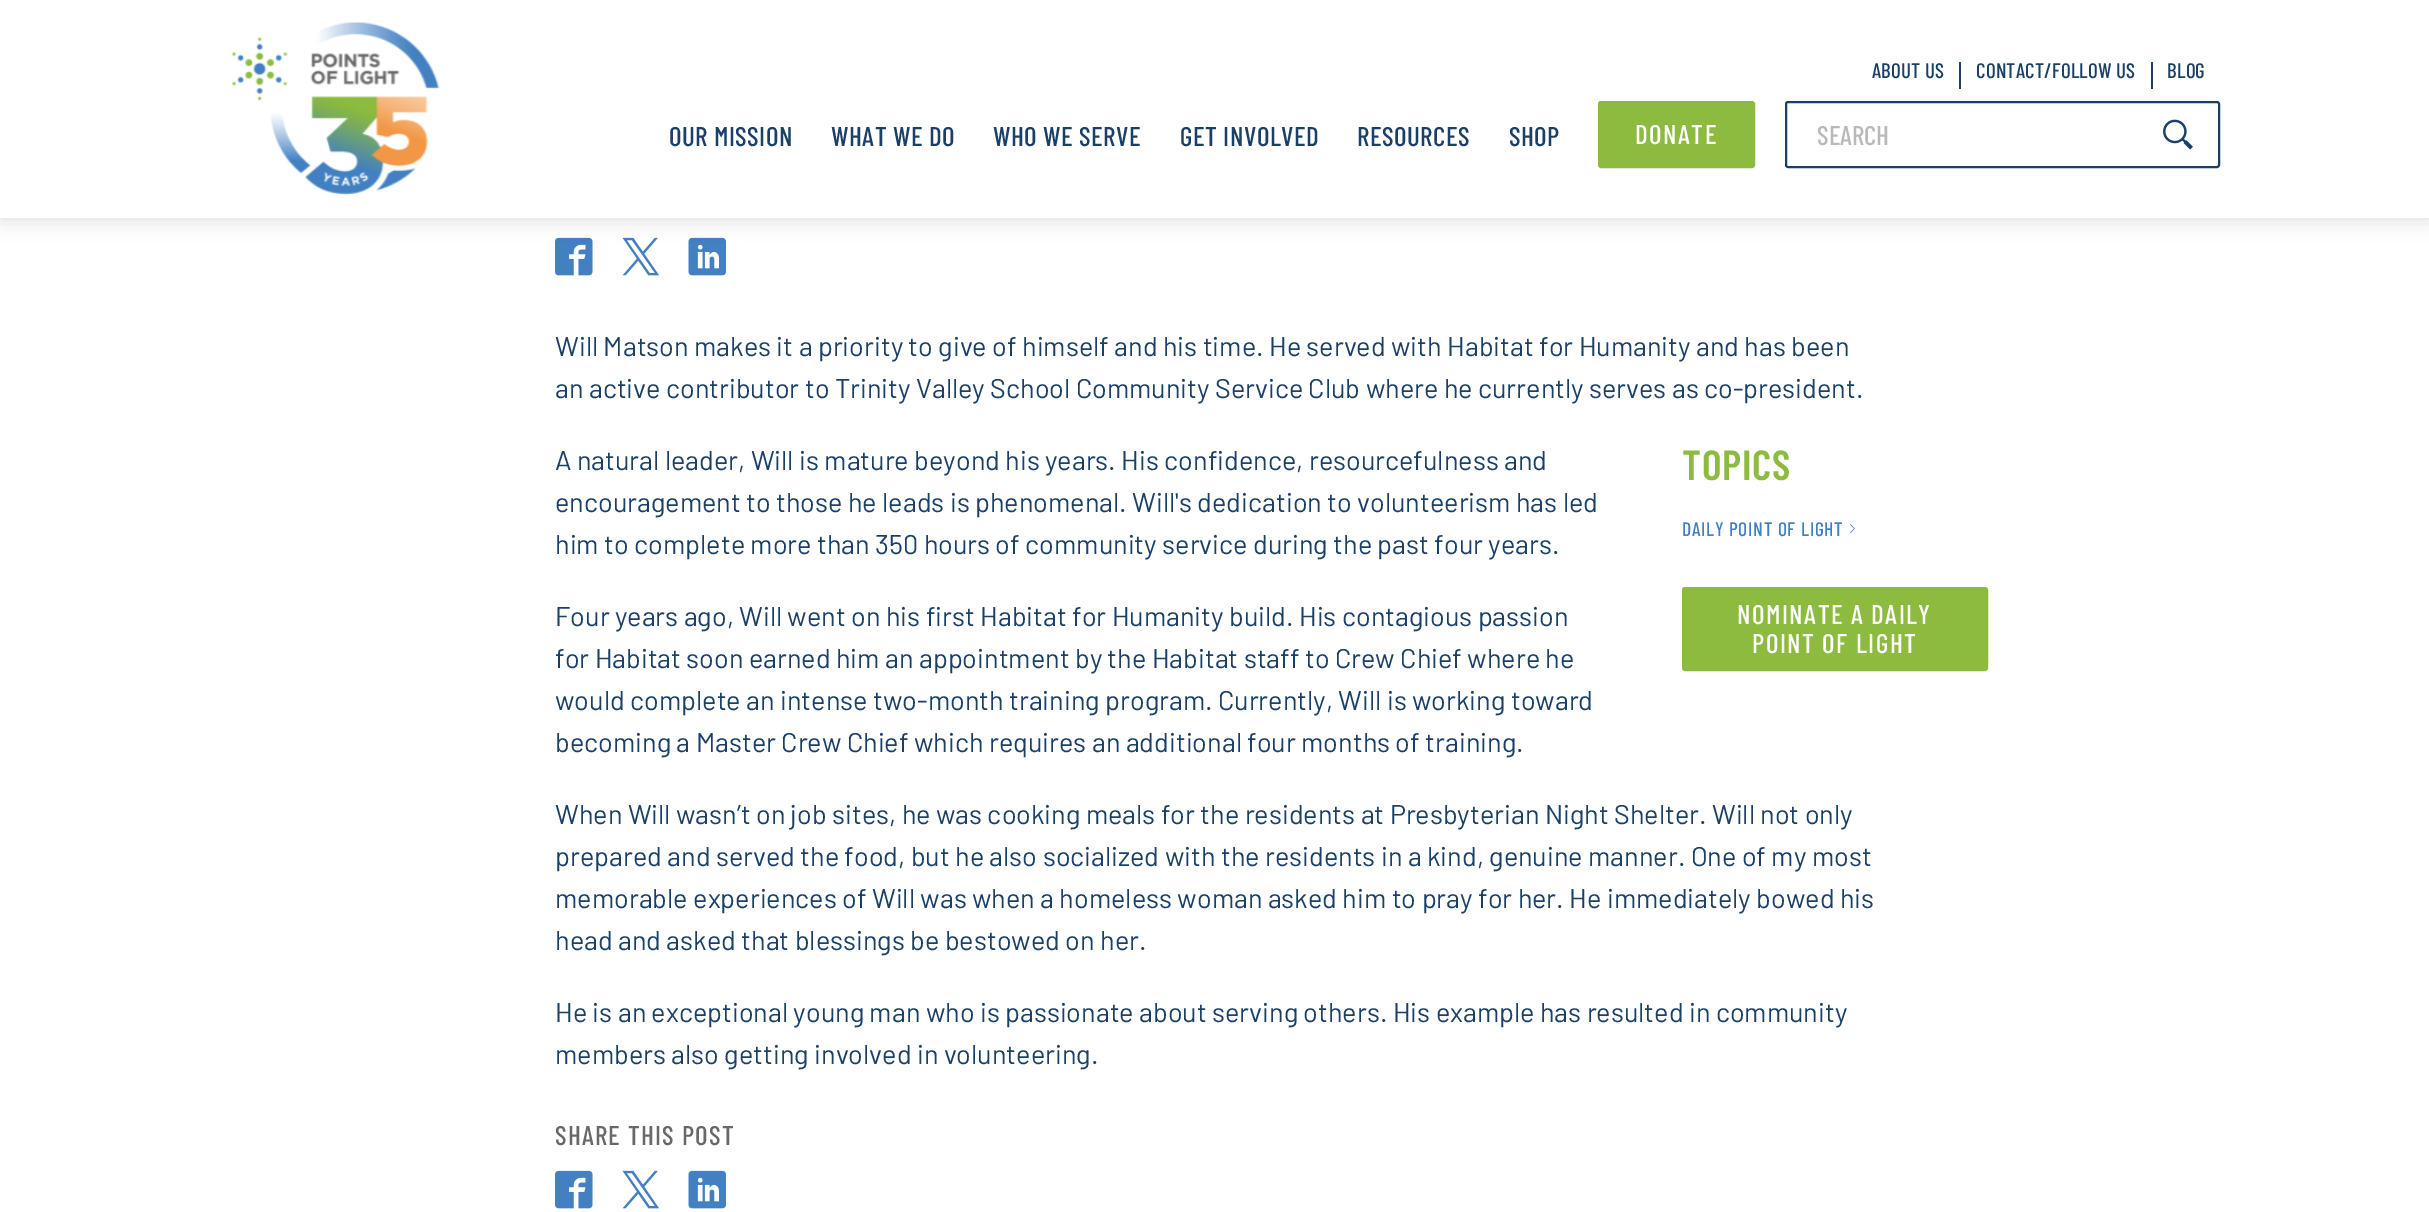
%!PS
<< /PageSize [2429 1212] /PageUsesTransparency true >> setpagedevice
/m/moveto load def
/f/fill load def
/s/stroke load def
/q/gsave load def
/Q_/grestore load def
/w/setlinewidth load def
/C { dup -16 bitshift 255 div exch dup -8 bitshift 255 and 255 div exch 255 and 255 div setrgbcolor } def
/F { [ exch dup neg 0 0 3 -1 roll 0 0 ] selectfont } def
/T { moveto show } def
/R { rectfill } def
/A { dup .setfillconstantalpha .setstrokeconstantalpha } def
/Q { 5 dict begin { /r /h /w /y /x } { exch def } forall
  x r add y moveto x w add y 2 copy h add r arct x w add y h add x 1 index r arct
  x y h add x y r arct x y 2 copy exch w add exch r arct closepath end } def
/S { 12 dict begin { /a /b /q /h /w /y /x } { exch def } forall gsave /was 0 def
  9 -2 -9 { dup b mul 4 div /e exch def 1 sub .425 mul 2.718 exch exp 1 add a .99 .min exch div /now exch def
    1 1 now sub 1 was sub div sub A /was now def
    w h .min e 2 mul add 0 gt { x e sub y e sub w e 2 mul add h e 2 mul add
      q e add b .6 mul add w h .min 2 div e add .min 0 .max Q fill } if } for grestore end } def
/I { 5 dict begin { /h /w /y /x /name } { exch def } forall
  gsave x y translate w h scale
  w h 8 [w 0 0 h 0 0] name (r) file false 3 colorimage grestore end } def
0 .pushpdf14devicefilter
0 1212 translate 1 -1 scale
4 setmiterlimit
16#FFFFFF C
0 0 2429 1212 R
(3.rgb) 555 237 38 39 I
(4.rgb) 622 237 38 39 I
(5.rgb) 688 237 38 39 I
16#000000 C
0 0 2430 218 0 11 .15 S
16#FFFFFF C
0 0 2429 218 R
(1.rgb) 232 22 208 173 I
/BarlowCondensed-Medium 21 F
16#1A4068 C
1872 78 m .2 0 (ABOUT US) ashow
1959 62 2 27 R
1976 78 m .2 0 (CONTACT/FOLLOW US) ashow
2151 62 2 27 R
2167 78 m .2 0 (BLOG) ashow
/BarlowCondensed-Medium 27 F
669 146 m .5 0 (OUR MISSION) ashow
831 146 m .5 0 (WHAT WE DO) ashow
993 146 m .5 0 (WHO WE SERVE) ashow
1180 146 m .5 0 (GET INVOLVED) ashow
1357 146 m .5 0 (RESOURCES) ashow
1509 146 m .5 0 (SHOP) ashow
16#8CBB3F C
1599 102 155 65 2 Q q f Q_
2 w
s
16#FFFFFF C
1635 144 m 1.5 0 (DONATE) ashow
16#1A4068 C
1786 102 433 65 2 Q s
16#B9B9B9 C
(SEARCH) 1817 145 T
(2.rgb) 2163 119 30 31 I
/Barlow-Regular 27 F
16#1A4068 C
(Will Matson makes it a priority to give of himself and his time. He served with Habitat for Humanity and has been) 555 356 T
(an active contributor to Trinity Valley School Community Service Club where he currently serves as co-president.) 555 398 T
(A natural leader, Will is mature beyond his years. His confidence, resourcefulness and) 555 470 T
(encouragement to those he leads is phenomenal. Will's dedication to volunteerism has led) 555 512 T
(him to complete more than 350 hours of community service during the past four years.) 555 554 T
/BarlowCondensed-SemiBold 42 F
16#8CBB3F C
1682 480 m .75 0 (TOPICS) ashow
/BarlowCondensed-Medium 19.5 F
16#4280C2 C
1682 536 m .75 0 (DAILY POINT OF LIGHT) ashow
(6.rgb) 1850 524 5 9 I
16#8CBB3F C
1683 588 304 82 2 Q q f Q_
s
/BarlowCondensed-Medium 27 F
16#FFFFFF C
1737 624 m 1.5 0 (NOMINATE A DAILY) ashow
1752 653 m 1.5 0 (POINT OF LIGHT) ashow
/Barlow-Regular 27 F
16#1A4068 C
(Four years ago, Will went on his first Habitat for Humanity build. His contagious passion) 555 626 T
(for Habitat soon earned him an appointment by the Habitat staff to Crew Chief where he) 555 668 T
(would complete an intense two-month training program. Currently, Will is working toward) 555 710 T
(becoming a Master Crew Chief which requires an additional four months of training.) 555 752 T
(When Will wasn’t on job sites, he was cooking meals for the residents at Presbyterian Night Shelter. Will not only) 555 824 T
(prepared and served the food, but he also socialized with the residents in a kind, genuine manner. One of my most) 555 866 T
(memorable experiences of Will was when a homeless woman asked him to pray for her. He immediately bowed his) 555 908 T
(head and asked that blessings be bestowed on her.) 555 950 T
(He is an exceptional young man who is passionate about serving others. His example has resulted in community) 555 1022 T
(members also getting involved in volunteering.) 555 1064 T
/BarlowCondensed-Medium 27 F
16#686868 C
555 1145 m 1.25 0 (SHARE THIS POST) ashow
(3.rgb) 555 1170 38 39 I
(4.rgb) 622 1170 38 39 I
(5.rgb) 688 1170 38 39 I
.poppdf14devicefilter showpage
